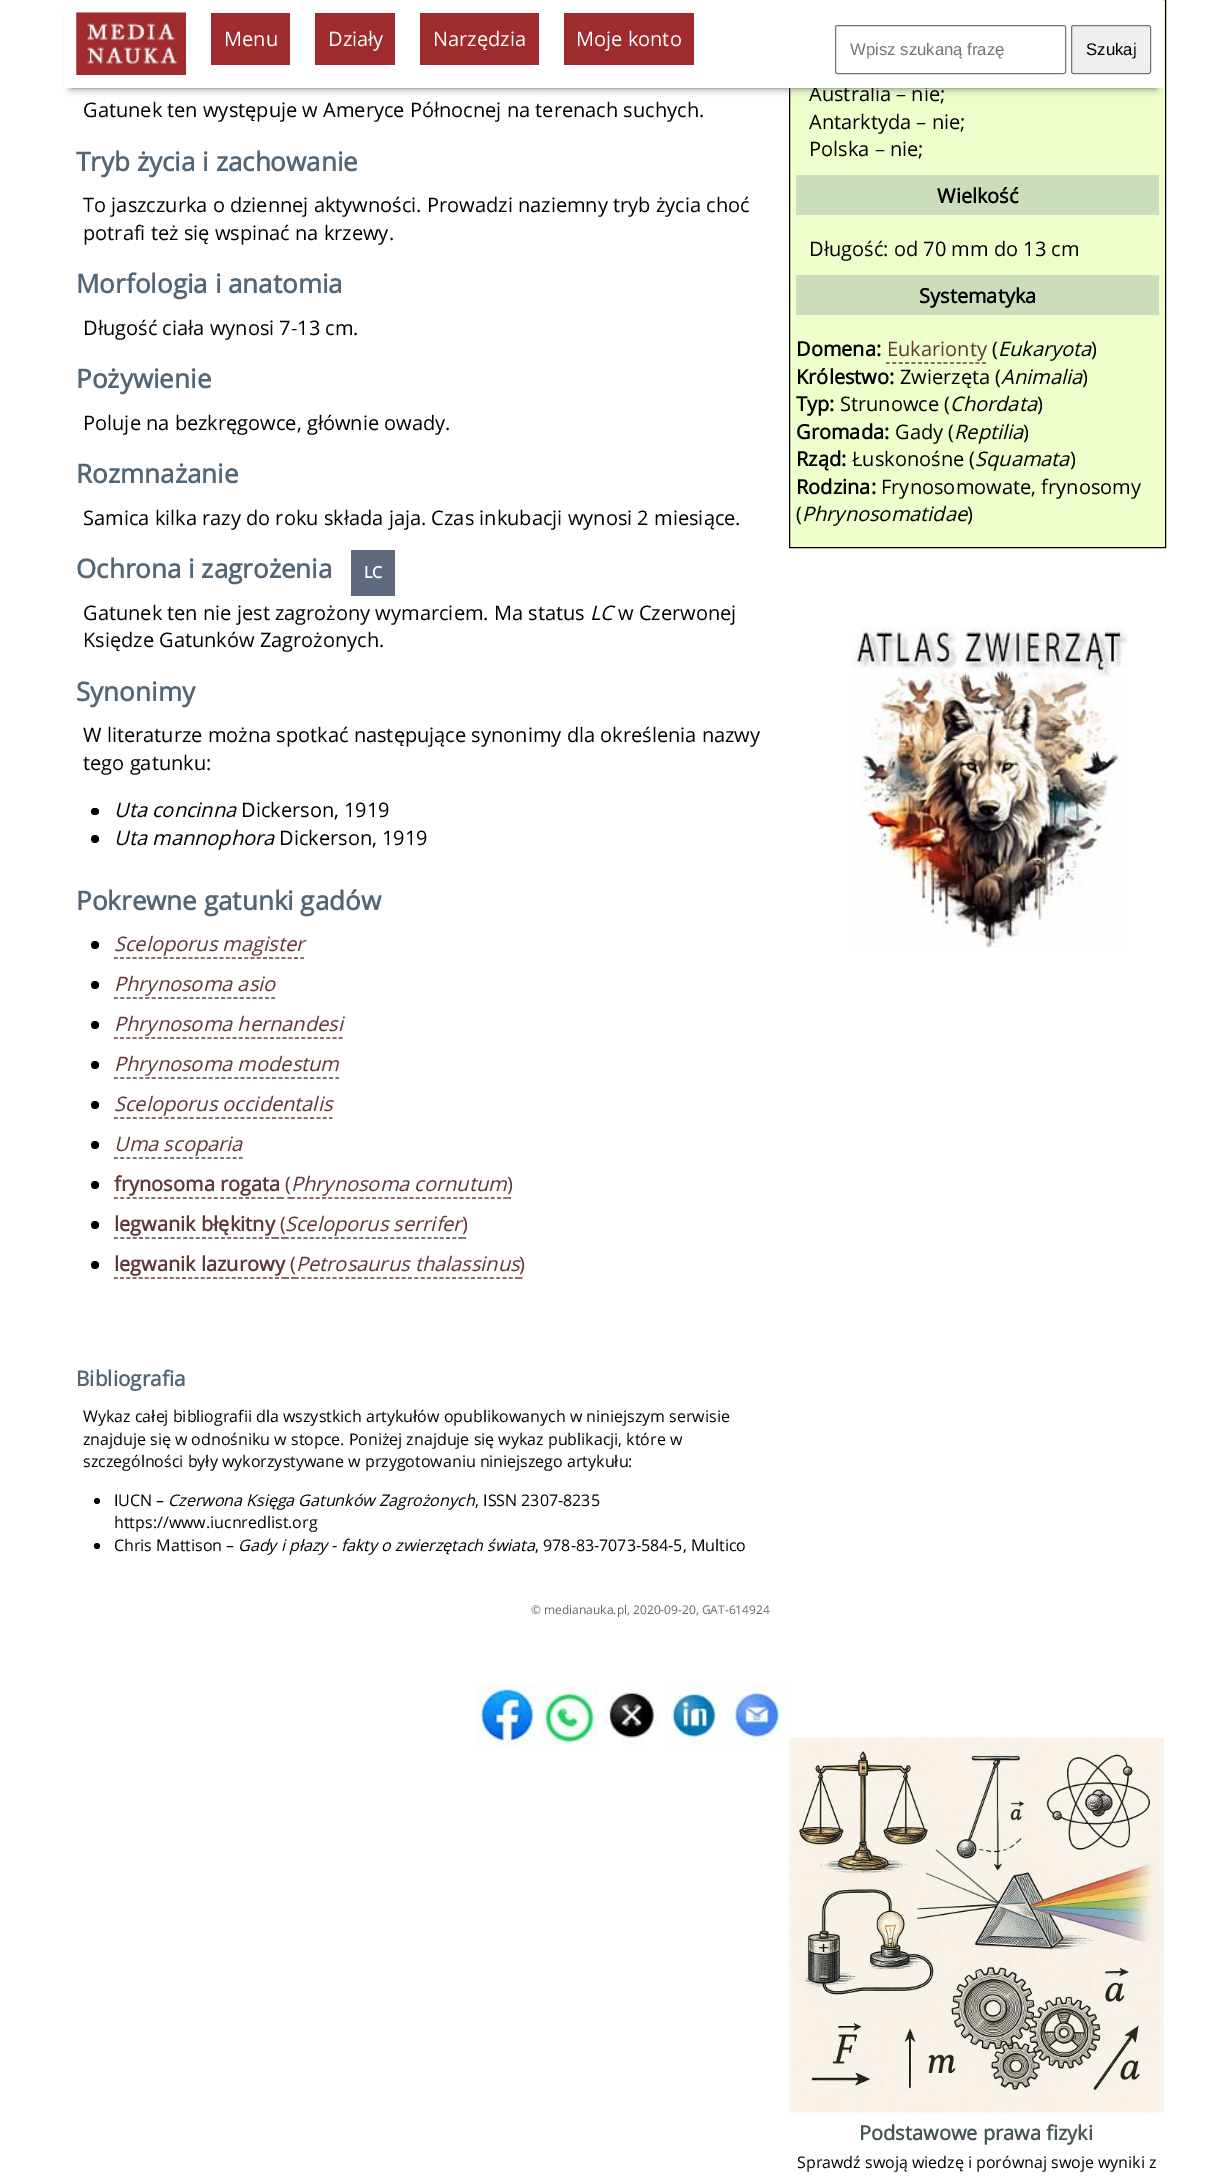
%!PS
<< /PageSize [1227 2177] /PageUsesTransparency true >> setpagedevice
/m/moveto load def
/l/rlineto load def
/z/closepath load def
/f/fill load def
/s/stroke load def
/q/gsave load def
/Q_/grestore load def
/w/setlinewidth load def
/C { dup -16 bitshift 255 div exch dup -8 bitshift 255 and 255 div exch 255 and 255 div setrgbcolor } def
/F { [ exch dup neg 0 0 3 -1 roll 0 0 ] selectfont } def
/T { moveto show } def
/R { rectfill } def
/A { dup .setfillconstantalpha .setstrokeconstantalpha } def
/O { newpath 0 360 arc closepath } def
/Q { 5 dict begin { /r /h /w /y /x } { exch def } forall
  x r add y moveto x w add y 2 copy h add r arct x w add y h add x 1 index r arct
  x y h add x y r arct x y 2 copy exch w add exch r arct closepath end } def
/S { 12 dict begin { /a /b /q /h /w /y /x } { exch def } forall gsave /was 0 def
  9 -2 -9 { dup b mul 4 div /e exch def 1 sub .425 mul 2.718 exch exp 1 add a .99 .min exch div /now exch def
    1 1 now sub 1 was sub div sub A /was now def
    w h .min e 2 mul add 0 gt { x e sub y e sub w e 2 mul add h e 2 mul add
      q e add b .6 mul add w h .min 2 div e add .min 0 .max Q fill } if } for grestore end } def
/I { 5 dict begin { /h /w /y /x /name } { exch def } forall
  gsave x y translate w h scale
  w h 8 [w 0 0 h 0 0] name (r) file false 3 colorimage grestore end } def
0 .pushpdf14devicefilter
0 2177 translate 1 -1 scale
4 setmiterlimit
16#FFFFFF C
0 0 1227 2177 R
16#EEFFCC C
789.5 -.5 m 376 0 l 0 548 l -376 0 l z q f Q_
16#000000 C
s
16#666666 C
71 15 1085 73 0 4 1 S
/OpenSans-Regular 20 F
16#000000 C
(Australia – nie;) 809 101 T
16#FFFFFF C
64 0 1100 88 R
(1.rgb) 76 12 111 63 I
186 0 533 78 4 Q f
16#A02B2E C
211 13 79 52 R
16#FFFFFF C
(Menu) 224 46 T
16#A02B2E C
315 13 80 52 R
16#FFFFFF C
(Działy) 328 46 T
16#A02B2E C
420 13 119 52 R
16#FFFFFF C
(Narzędzia) 433 46 T
16#A02B2E C
564 13 130 52 R
16#FFFFFF C
(Moje konto) 576 46 T
16#767676 C
835.5 25.5 230 48 2 Q s
/LiberationSans-Regular 16.75 F
16#757575 C
(Wpisz szukaną frazę) 850 55 T
16#EFEFEF C
1071.5 25.5 79 48 2 Q q f Q_
16#767676 C
s
16#000000 C
(Szukaj) 1086 55 T
/OpenSans-Regular 20 F
(Gatunek ten występuje w Ameryce Północnej na terenach suchych.) 83 117 T
/OpenSans-Bold 26 F
16#536675 C
(Tryb życia i zachowanie) 76 171 T
/OpenSans-Regular 20 F
16#000000 C
(To jaszczurka o dziennej aktywności. Prowadzi naziemny tryb życia choć) 83 212 T
(potrafi też się wspinać na krzewy.) 83 240 T
/OpenSans-Bold 26 F
16#536675 C
(Morfologia i anatomia) 76 293 T
/OpenSans-Regular 20 F
16#000000 C
(Długość ciała wynosi 7-13 cm.) 83 335 T
/OpenSans-Bold 26 F
16#536675 C
(Pożywienie) 76 388 T
/OpenSans-Regular 20 F
16#000000 C
(Poluje na bezkręgowce, głównie owady.) 83 430 T
/OpenSans-Bold 26 F
16#536675 C
(Rozmnażanie) 76 483 T
/OpenSans-Regular 20 F
16#000000 C
(Samica kilka razy do roku składa jaja. Czas inkubacji wynosi 2 miesiące.) 83 525 T
/OpenSans-Bold 26 F
16#536675 C
(Ochrona i zagrożenia) 76 578 T
16#5E697D C
351 550 44 46 R
/OpenSans-Bold 16 F
16#FFFFFF C
(LC) 364 578 T
/OpenSans-Regular 20 F
16#000000 C
(Gatunek ten nie jest zagrożony wymarciem. Ma status) 83 620 T
/OpenSans-Italic 20 F
(LC) 590 620 T
/OpenSans-Regular 20 F
(w Czerwonej) 618 620 T
(Księdze Gatunków Zagrożonych.) 83 647 T
/OpenSans-Bold 26 F
16#536675 C
(Synonimy) 76 701 T
/OpenSans-Regular 20 F
16#000000 C
(W literaturze można spotkać następujące synonimy dla określenia nazwy) 83 742 T
(tego gatunku:) 83 770 T
91 808 8 7 3.5 Q f
/OpenSans-Italic 20 F
(Uta concinna) 114 817 T
/OpenSans-Regular 20 F
(Dickerson, 1919) 241 817 T
95 839 4 O f
/OpenSans-Italic 20 F
(Uta mannophora) 114 845 T
/OpenSans-Regular 20 F
(Dickerson, 1919) 279 845 T
/OpenSans-Bold 26 F
16#536675 C
(Pokrewne gatunki gadów) 76 910 T
16#000000 C
95 945 4 O f
/OpenSans-Italic 20 F
16#603737 C
(Sceloporus magister) 114 951 T
1.2 w
[3.75 2.46] 0 setdash
114 958 m 190 0 l s
16#000000 C
95 985 4 O f
16#603737 C
(Phrynosoma asio) 114 991 T
[3.75 2.55] 0 setdash
114 998 m 161 0 l s
16#000000 C
95 1025 4 O f
16#603737 C
(Phrynosoma hernandesi) 114 1031 T
[3.75 2.5] 0 setdash
114 1038 m 228.5 0 l s
16#000000 C
95 1065 4 O f
16#603737 C
(Phrynosoma modestum) 114 1071 T
[3.75 2.58] 0 setdash
114 1078 m 225 0 l s
16#000000 C
95 1105 4 O f
16#603737 C
(Sceloporus occidentalis) 114 1111 T
114 1118 m 218.5 0 l s
16#000000 C
95 1145 4 O f
16#603737 C
(Uma scoparia) 114 1151 T
[3.75 2.5] 0 setdash
114 1158 m 128.5 0 l s
16#000000 C
95 1185 4 O f
/OpenSans-Bold 20 F
16#603737 C
(frynosoma rogata) 114 1191 T
114 1198 m 166 0 l s
/OpenSans-Regular 20 F
(\() 285 1191 T
[] 0 setdash
280 1198 m 4 0 l 287.5 1198 m 3.5 0 l s
[3.75 2.5] 0 setdash
291 1198 m 216.5 0 l s
/OpenSans-Italic 20 F
(Phrynosoma cornutum) 291 1191 T
[] 0 setdash
507.5 1198 m 3.5 0 l s
/OpenSans-Regular 20 F
(\)) 507 1191 T
/OpenSans-Bold 20 F
(legwanik błękitny) 114 1231 T
[3.75 2.55] 0 setdash
114 1238 m 161 0 l s
[] 0 setdash
275 1238 m 4 0 l 281 1238 m 4 0 l s
/OpenSans-Regular 20 F
(\() 280 1231 T
[3.75 2.45] 0 setdash
285 1238 m 177.5 0 l s
/OpenSans-Italic 20 F
(Sceloporus serrifer) 285 1231 T
[] 0 setdash
462.5 1238 m 3.5 0 l s
16#000000 C
95 1225 4 O f
/OpenSans-Regular 20 F
16#603737 C
(\)) 462 1231 T
16#000000 C
95 1265 4 O f
/OpenSans-Bold 20 F
16#603737 C
(legwanik lazurowy) 114 1271 T
[3.75 2.45] 0 setdash
114 1278 m 171 0 l s
[] 0 setdash
285 1278 m 4 0 l 291 1278 m 4 0 l s
/OpenSans-Regular 20 F
(\() 290 1271 T
[3.75 2.54] 0 setdash
295 1278 m 224 0 l s
/OpenSans-Italic 20 F
(Petrosaurus thalassinus) 296 1271 T
/OpenSans-Regular 20 F
(\)) 519 1271 T
[] 0 setdash
519 1278 m 3.5 0 l s
/OpenSans-Bold 20.75 F
16#536675 C
(Bibliografia) 76 1386 T
/OpenSans-Regular 16 F
16#000000 C
(Wykaz całej bibliografii dla wszystkich artykułów opublikowanych w niniejszym serwisie) 83 1422 T
(znajduje się w odnośniku w stopce. Poniżej znajduje się wykaz publikacji, które w) 83 1445 T
(szczególności były wykorzystywane w przygotowaniu niniejszego artykułu:) 83 1467 T
97 1501 3 O f
(IUCN –) 114 1506 T
/OpenSans-Italic 16 F
(Czerwona Księga Gatunków Zagrożonych) 168 1506 T
/OpenSans-Regular 16 F
(, ISSN 2307-8235) 475 1506 T
(https://www.iucnredlist.org) 114 1528 T
97 1546 3 O f
(Chris Mattison –) 114 1551 T
/OpenSans-Italic 16 F
(Gady i płazy - fakty o zwierzętach świata) 238 1551 T
/OpenSans-Regular 16 F
(, 978-83-7073-584-5, Multico) 535 1551 T
/OpenSans-Regular 12 F
16#666666 C
(© medianauka.pl, 2020-09-20, GAT-614924) 531 1614 T
(2.rgb) 476 1685 61 61 I
(3.rgb) 539 1685 60 60 I
(4.rgb) 604 1686 57 59 I
(5.rgb) 664 1685 60 61 I
(6.rgb) 726 1685 60 60 I
/OpenSans-Regular 20 F
16#000000 C
(Antarktyda – nie;) 809 129 T
(Polska – nie;) 809 156 T
16#CCDDBB C
796 175 363 40 R
/OpenSans-Bold 20 F
16#000000 C
(Wielkość) 937 203 T
/OpenSans-Regular 20 F
(Długość: od 70 mm do 13 cm) 809 256 T
16#CCDDBB C
796 275 363 40 R
/OpenSans-Bold 20 F
16#000000 C
(Systematyka) 919 303 T
(Domena:) 796 356 T
/OpenSans-Regular 20 F
16#603737 C
(Eukarionty) 887 356 T
[3.75 2.66] 0 setdash
886 363 m 100 0 l s
16#000000 C
(\() 992 356 T
/OpenSans-Italic 20 F
(Eukaryota) 998 356 T
/OpenSans-Regular 20 F
(\)) 1091 356 T
/OpenSans-Bold 20 F
(Królestwo:) 796 384 T
/OpenSans-Regular 20 F
(Zwierzęta \() 900 384 T
/OpenSans-Italic 20 F
(Animalia) 1001 384 T
/OpenSans-Regular 20 F
(\)) 1082 384 T
/OpenSans-Bold 20 F
(Typ:) 796 411 T
/OpenSans-Regular 20 F
(Strunowce \() 840 411 T
/OpenSans-Italic 20 F
(Chordata) 950 411 T
/OpenSans-Regular 20 F
(\)) 1037 411 T
/OpenSans-Bold 20 F
(Gromada:) 796 439 T
/OpenSans-Regular 20 F
(Gady \() 895 439 T
/OpenSans-Italic 20 F
(Reptilia) 954 439 T
/OpenSans-Regular 20 F
(\)) 1023 439 T
/OpenSans-Bold 20 F
(Rząd:) 796 466 T
/OpenSans-Regular 20 F
(Łuskonośne \() 852 466 T
/OpenSans-Italic 20 F
(Squamata) 975 466 T
/OpenSans-Regular 20 F
(\)) 1070 466 T
/OpenSans-Bold 20 F
(Rodzina:) 796 494 T
/OpenSans-Regular 20 F
(Frynosomowate, frynosomy) 881 494 T
(\() 796 521 T
/OpenSans-Italic 20 F
(Phrynosomatidae) 802 521 T
/OpenSans-Regular 20 F
(\)) 967 521 T
(7.rgb) 851 627 277 321 I
(8.rgb) 788 1737 376 376 I
/OpenSans-Bold 20 F
16#445555 C
(Podstawowe prawa fizyki) 859 2140 T
/OpenSans-Regular 16 F
16#000000 C
(Sprawdź swoją wiedzę i porównaj swoje wyniki z) 797 2168 T
.poppdf14devicefilter showpage
